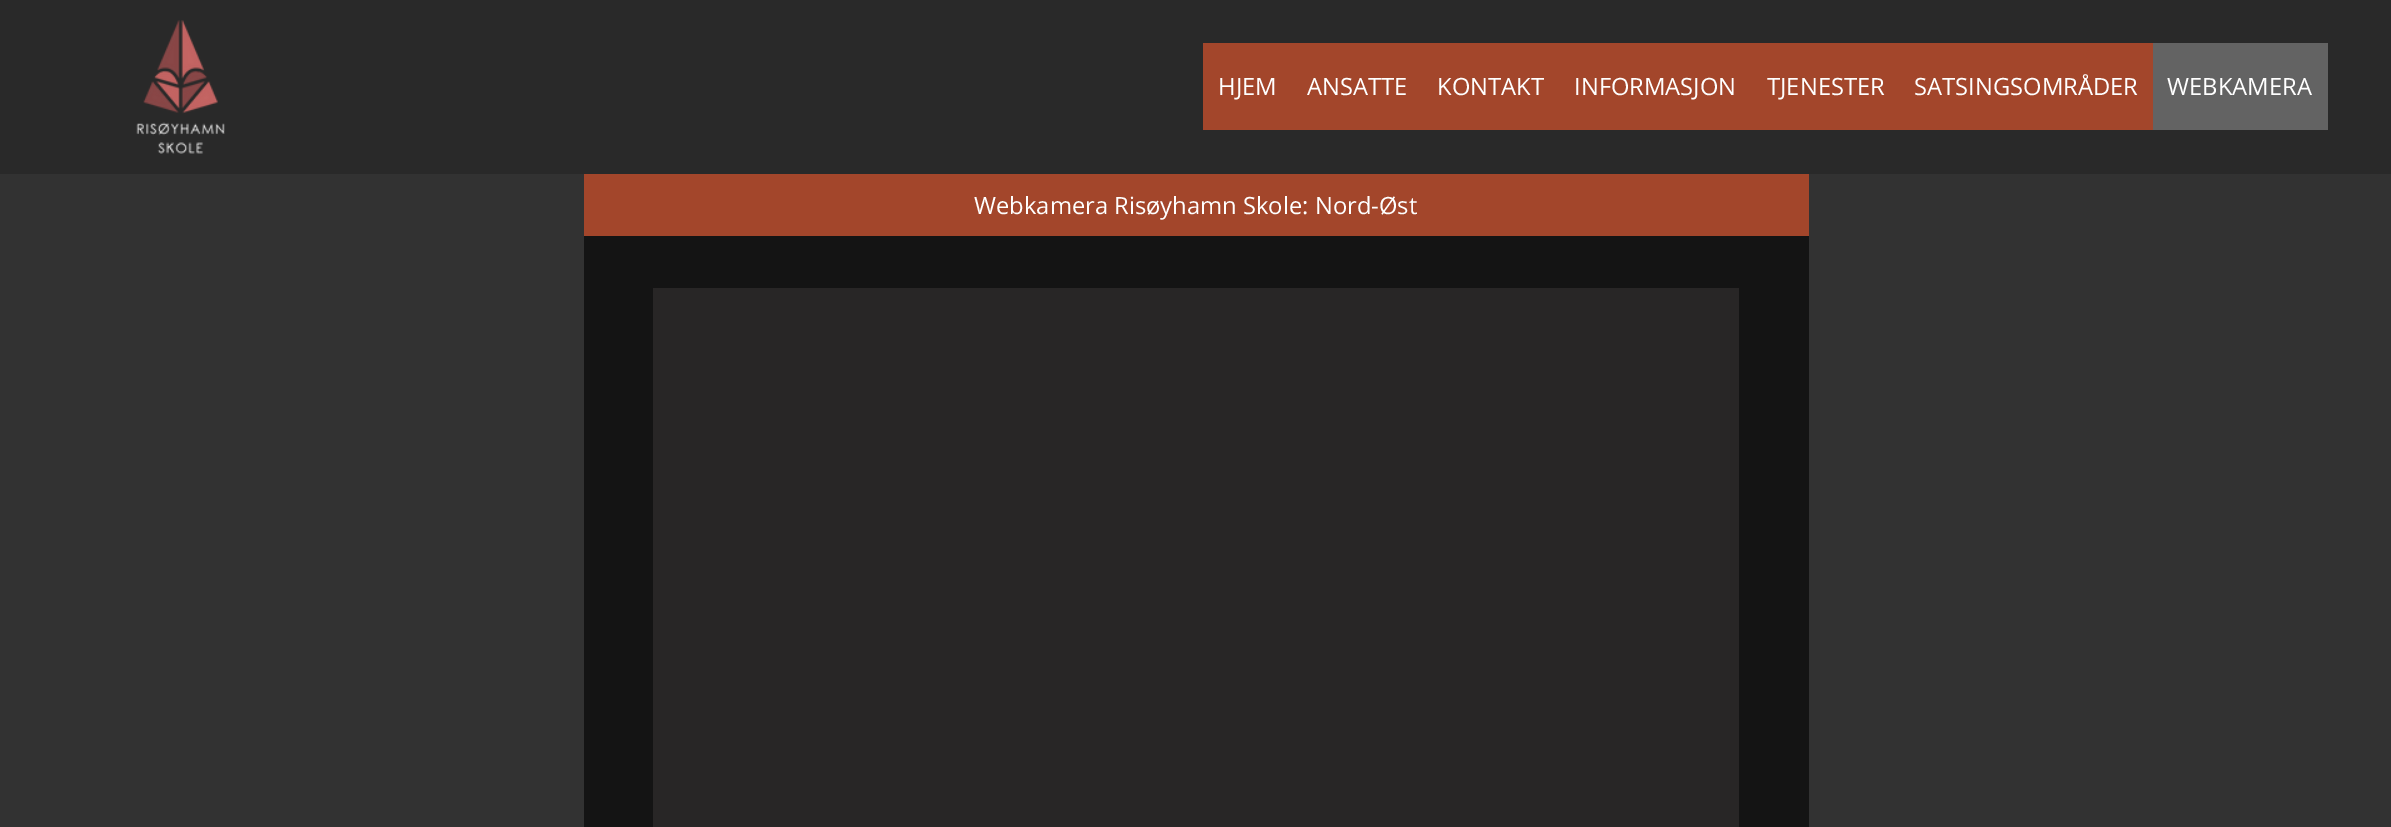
%!PS
<< /PageSize [2391 827] >> setpagedevice
/C { dup -16 bitshift 255 div exch dup -8 bitshift 255 and 255 div exch 255 and 255 div setrgbcolor } def
/F { [ exch dup neg 0 0 3 -1 roll 0 0 ] selectfont } def
/T { moveto show } def
/R { rectfill } def
/I { 5 dict begin { /h /w /y /x /name } { exch def } forall
  gsave x y translate w h scale
  w h 8 [w 0 0 h 0 0] name (r) file false 3 colorimage grestore end } def
0 827 translate 1 -1 scale
4 setmiterlimit
16#323232 C
0 0 2391 827 R
16#292929 C
0 0 2391 174 R
(1.rgb) 136 20 89 134 I
16#A3462B C
1203 43 950 87 R
/OpenSans-Regular 23.75 F
16#FFFFFF C
(HJEM) 1218 95 T
(ANSATTE) 1307 95 T
(KONTAKT) 1437 95 T
(INFORMASJON) 1574 95 T
(TJENESTER) 1767 95 T
(SATSINGSOMRÅDER) 1914 95 T
16#636363 C
2153 43 175 87 R
16#FFFFFF C
(WEBKAMERA) 2167 95 T
16#A3462B C
584 174 1225 62 R
16#FFFFFF C
(Webkamera Risøyhamn Skole: Nord-Øst) 974 214 T
16#141414 C
584 236 1225 591 R
16#282626 C
653 288 1086 539 R
showpage
